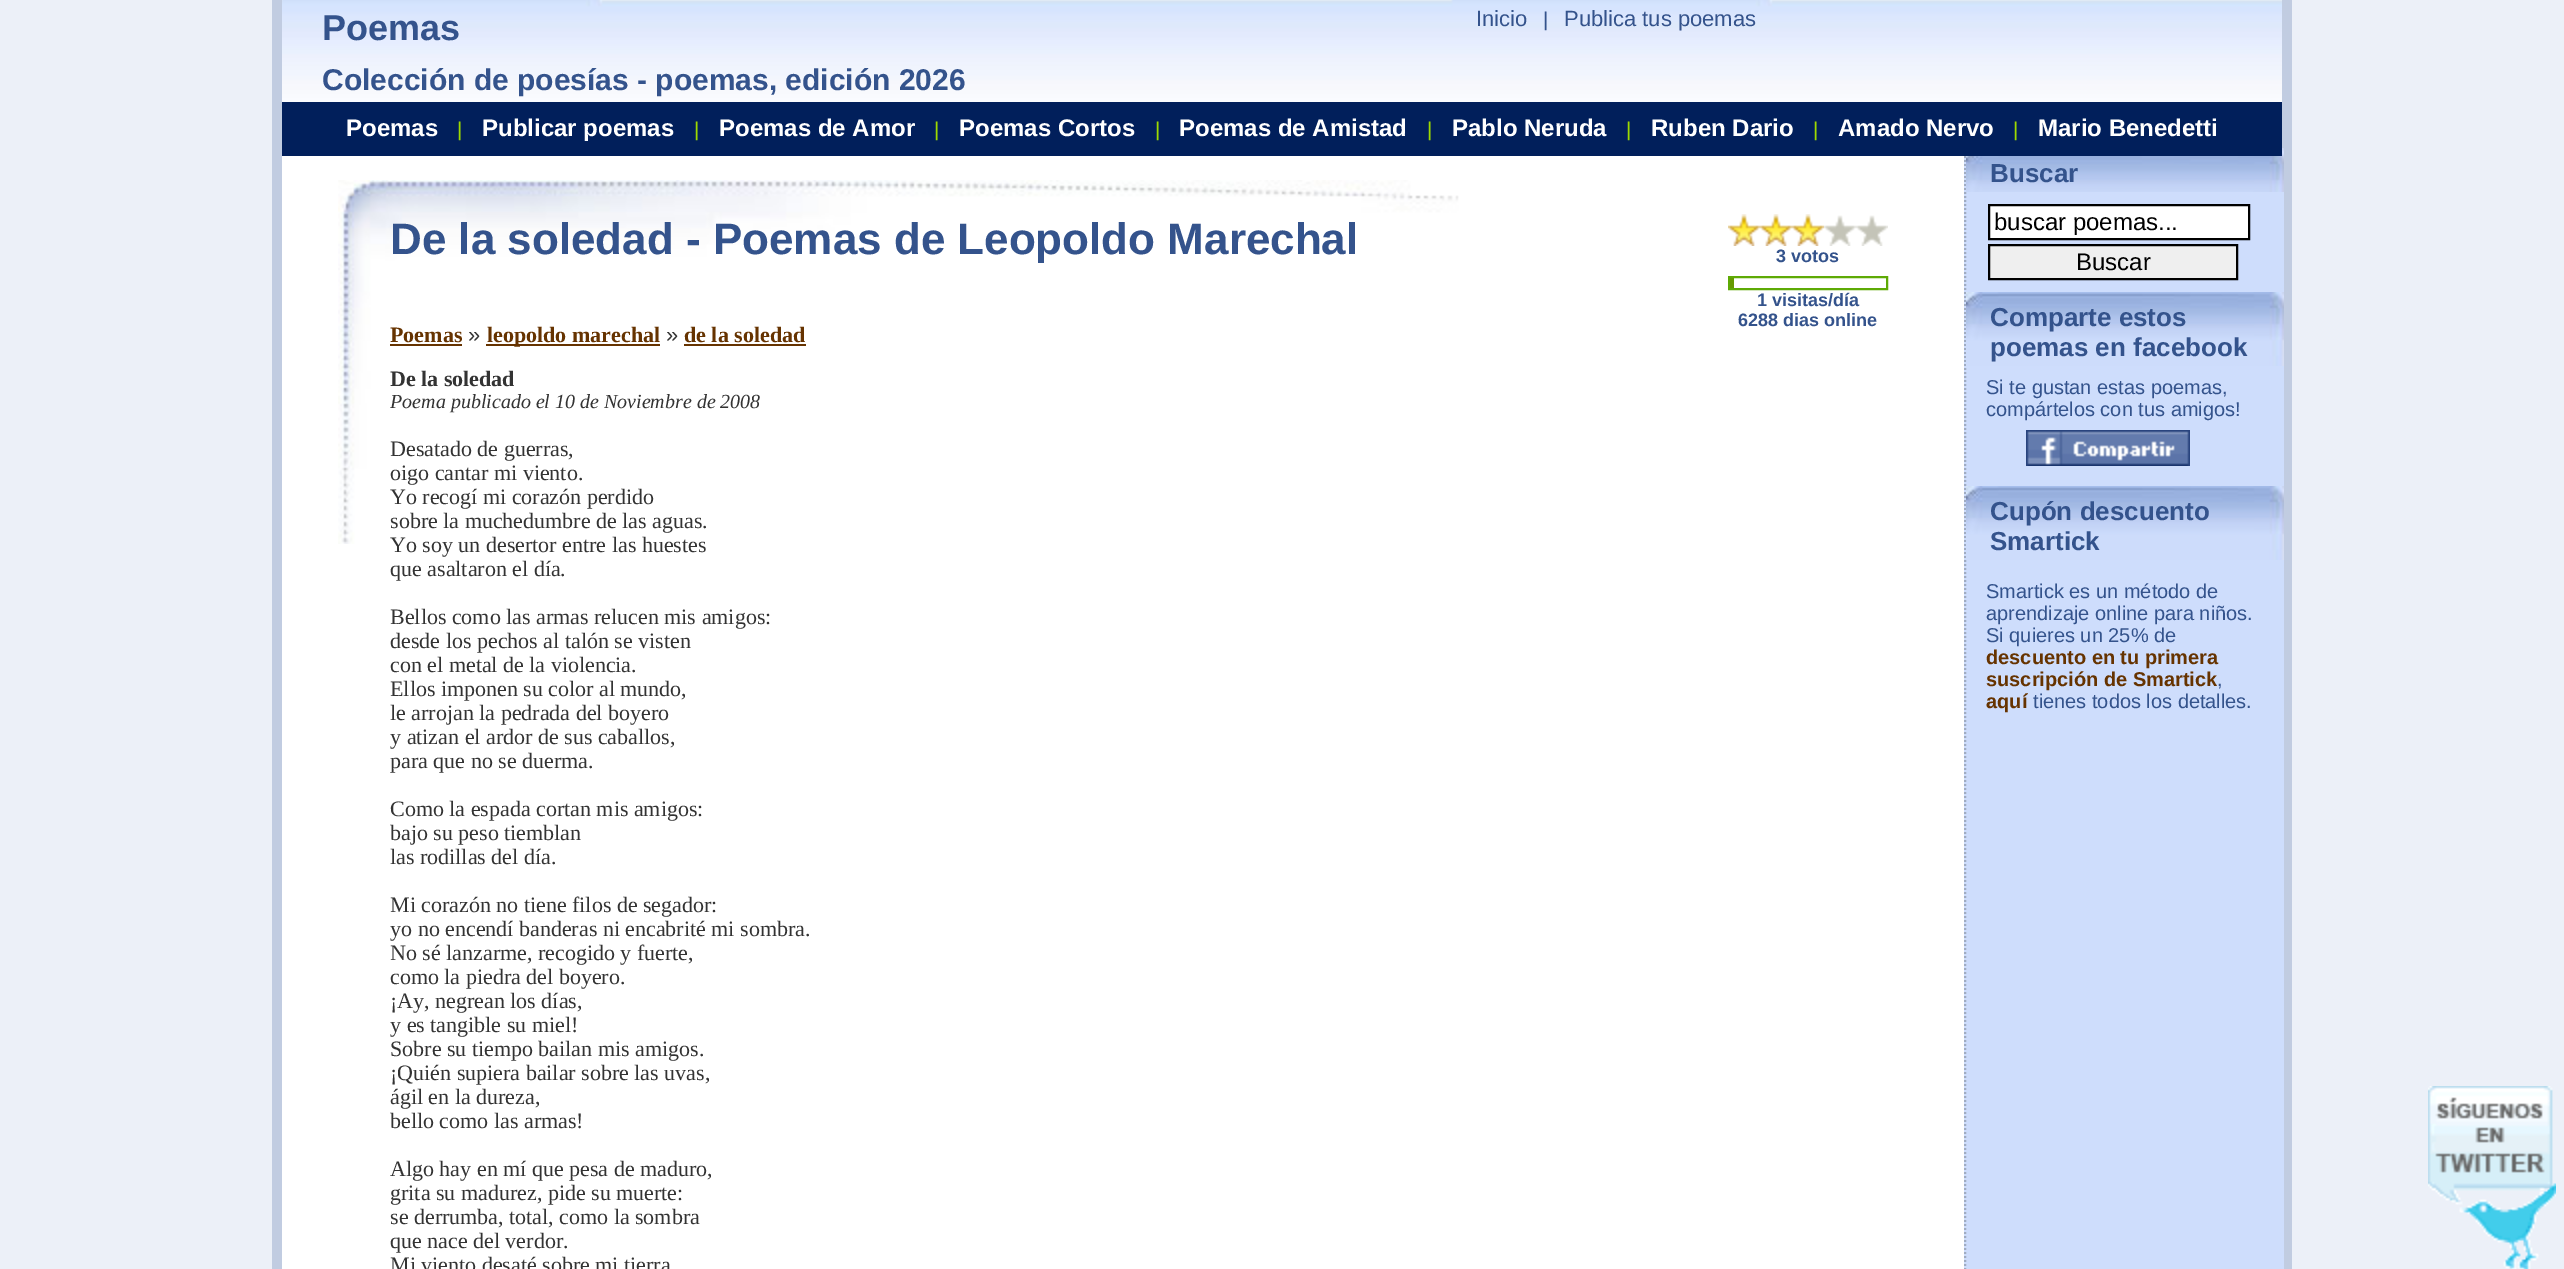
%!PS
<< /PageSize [2564 1269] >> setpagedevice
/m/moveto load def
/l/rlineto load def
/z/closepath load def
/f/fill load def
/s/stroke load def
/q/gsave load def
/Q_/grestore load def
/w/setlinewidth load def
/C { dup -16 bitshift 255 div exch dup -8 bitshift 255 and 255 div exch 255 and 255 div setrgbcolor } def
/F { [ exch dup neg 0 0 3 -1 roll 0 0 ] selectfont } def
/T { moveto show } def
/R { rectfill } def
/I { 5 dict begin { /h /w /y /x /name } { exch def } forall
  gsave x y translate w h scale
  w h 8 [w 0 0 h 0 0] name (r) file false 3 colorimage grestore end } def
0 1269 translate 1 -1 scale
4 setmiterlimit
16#ECF0F8 C
0 0 2564 1269 R
16#FFFFFF C
282 156 1682 1113 R
16#C1CCE1 C
2292 0 m 0 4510 l -10 -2 l 0 -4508 l z f
272 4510 m 0 -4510 l 10 0 l 0 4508 l z f
(1.rgb) 282 0 2000 102 I
/LiberationSans-Regular 22 F
16#34538C C
(Inicio) 1476 26 T
/LiberationSans-Regular 20 F
(|) 1543 26 T
/LiberationSans-Regular 22 F
(Publica tus poemas) 1564 26 T
/LiberationSans-Bold 36 F
(Poemas) 322 40 T
/LiberationSans-Bold 30 F
(Colección de poesías - poemas, edición 2026) 322 90 T
16#CEDDFC C
1964 158 320 1111 R
16#A0ACC2 C
2 w
[2 2] 0 setdash
1965 148 m 0 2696 l s
(2.rgb) 1966 148 318 44 I
/LiberationSans-Bold 26 F
16#34538C C
(Buscar) 1990 182 T
16#FFFFFF C
1989 205 m 260 0 l 0 34 l -260 0 l z q f Q_
16#000000 C
[] 0 setdash
s
/LiberationSans-Regular 24 F
(buscar poemas...) 1994 230 T
16#EFEFEF C
1989 245 m 248 0 l 0 34 l -248 0 l z q f Q_
16#000000 C
s
(Buscar) 2076 270 T
(3.rgb) 1966 292 318 74 I
/LiberationSans-Bold 26 F
16#34538C C
(Comparte estos) 1990 326 T
(poemas en facebook) 1990 356 T
/LiberationSans-Regular 20 F
(Si te gustan estas poemas,) 1986 394 T
(compártelos con tus amigos!) 1986 416 T
(4.rgb) 2026 430 164 36 I
(3.rgb) 1966 486 318 74 I
/LiberationSans-Bold 26 F
(Cupón descuento) 1990 520 T
(Smartick) 1990 550 T
/LiberationSans-Regular 20 F
(Smartick es un método de) 1986 598 T
(aprendizaje online para niños.) 1986 620 T
(Si quieres un 25% de) 1986 642 T
/LiberationSans-Bold 20 F
16#663300 C
(descuento en tu primera) 1986 664 T
(suscripción de Smartick) 1986 686 T
/LiberationSans-Regular 20 F
16#34538C C
(,) 2217 686 T
/LiberationSans-Bold 20 F
16#663300 C
(aquí) 1986 708 T
/LiberationSans-Regular 20 F
16#34538C C
(tienes todos los detalles.) 2033 708 T
16#011F5B C
282 102 2000 54 R
/LiberationSans-Bold 24 F
16#FFFFFF C
(Poemas) 346 136 T
/LiberationSans-Regular 20 F
16#9DD900 C
(|) 457 136 T
/LiberationSans-Bold 24 F
16#FFFFFF C
(Publicar poemas) 482 136 T
/LiberationSans-Regular 20 F
16#9DD900 C
(|) 694 136 T
/LiberationSans-Bold 24 F
16#FFFFFF C
(Poemas de Amor) 719 136 T
/LiberationSans-Regular 20 F
16#9DD900 C
(|) 934 136 T
/LiberationSans-Bold 24 F
16#FFFFFF C
(Poemas Cortos) 959 136 T
/LiberationSans-Regular 20 F
16#9DD900 C
(|) 1155 136 T
/LiberationSans-Bold 24 F
16#FFFFFF C
(Poemas de Amistad) 1179 136 T
/LiberationSans-Regular 20 F
16#9DD900 C
(|) 1427 136 T
/LiberationSans-Bold 24 F
16#FFFFFF C
(Pablo Neruda) 1452 136 T
/LiberationSans-Regular 20 F
16#9DD900 C
(|) 1626 136 T
/LiberationSans-Bold 24 F
16#FFFFFF C
(Ruben Dario) 1651 136 T
/LiberationSans-Regular 20 F
16#9DD900 C
(|) 1813 136 T
/LiberationSans-Bold 24 F
16#FFFFFF C
(Amado Nervo) 1838 136 T
/LiberationSans-Regular 20 F
16#9DD900 C
(|) 2013 136 T
/LiberationSans-Bold 24 F
16#FFFFFF C
(Mario Benedetti) 2038 136 T
(5.rgb) 338 180 1121 364 I
/LiberationSans-Bold 44 F
16#34538C C
(De la soledad - Poemas de Leopoldo Marechal) 390 254 T
(6.rgb) 1728 214 32 32 I
(6.rgb) 1760 214 32 32 I
(6.rgb) 1792 214 32 32 I
(7.rgb) 1824 215 32 31 I
(7.rgb) 1856 215 32 31 I
/LiberationSans-Bold 18 F
(3 votos) 1776 262 T
16#5EAA05 C
1729 277 158 12 rectstroke
16#669900 C
1730 278 4 10 R
16#34538C C
(1 visitas/día) 1757 306 T
(6288 dias online) 1738 326 T
/LiberationSerif-Bold 22 F
16#663300 C
(Poemas) 390 342 T
390 344 72 2 R
/LiberationSans-Regular 22 F
16#333333 C
(») 468 342 T
16#663300 C
486 344 174 2 R
/LiberationSerif-Bold 22 F
(leopoldo marechal) 487 342 T
/LiberationSans-Regular 22 F
16#333333 C
(») 666 342 T
/LiberationSerif-Bold 22 F
16#663300 C
(de la soledad) 684 342 T
684 344 122 2 R
16#333333 C
(De la soledad) 390 386 T
/LiberationSerif-Italic 20 F
(Poema publicado el 10 de Noviembre de 2008) 390 408 T
/LiberationSerif-Regular 22 F
(Desatado de guerras,) 390 456 T
(oigo cantar mi viento.) 390 480 T
(Yo recogí mi corazón perdido) 390 504 T
(sobre la muchedumbre de las aguas.) 390 528 T
(Yo soy un desertor entre las huestes) 390 552 T
(que asaltaron el día.) 390 576 T
(Bellos como las armas relucen mis amigos:) 390 624 T
(desde los pechos al talón se visten) 390 648 T
(con el metal de la violencia.) 390 672 T
(Ellos imponen su color al mundo,) 390 696 T
(le arrojan la pedrada del boyero) 390 720 T
(y atizan el ardor de sus caballos,) 390 744 T
(para que no se duerma.) 390 768 T
(Como la espada cortan mis amigos:) 390 816 T
(bajo su peso tiemblan) 390 840 T
(las rodillas del día.) 390 864 T
(Mi corazón no tiene filos de segador:) 390 912 T
(yo no encendí banderas ni encabrité mi sombra.) 390 936 T
(No sé lanzarme, recogido y fuerte,) 390 960 T
(como la piedra del boyero.) 390 984 T
(¡Ay, negrean los días,) 390 1008 T
(y es tangible su miel!) 390 1032 T
(Sobre su tiempo bailan mis amigos.) 390 1056 T
(¡Quién supiera bailar sobre las uvas,) 390 1080 T
(ágil en la dureza,) 390 1104 T
(bello como las armas!) 390 1128 T
(Algo hay en mí que pesa de maduro,) 390 1176 T
(grita su madurez, pide su muerte:) 390 1200 T
(se derrumba, total, como la sombra) 390 1224 T
(que nace del verdor.) 390 1248 T
(Mi viento desaté sobre mi tierra) 390 1272 T
(8.rgb) 2428 1086 128 183 I
(9.rgb) 2430 1090 126 179 I
showpage
